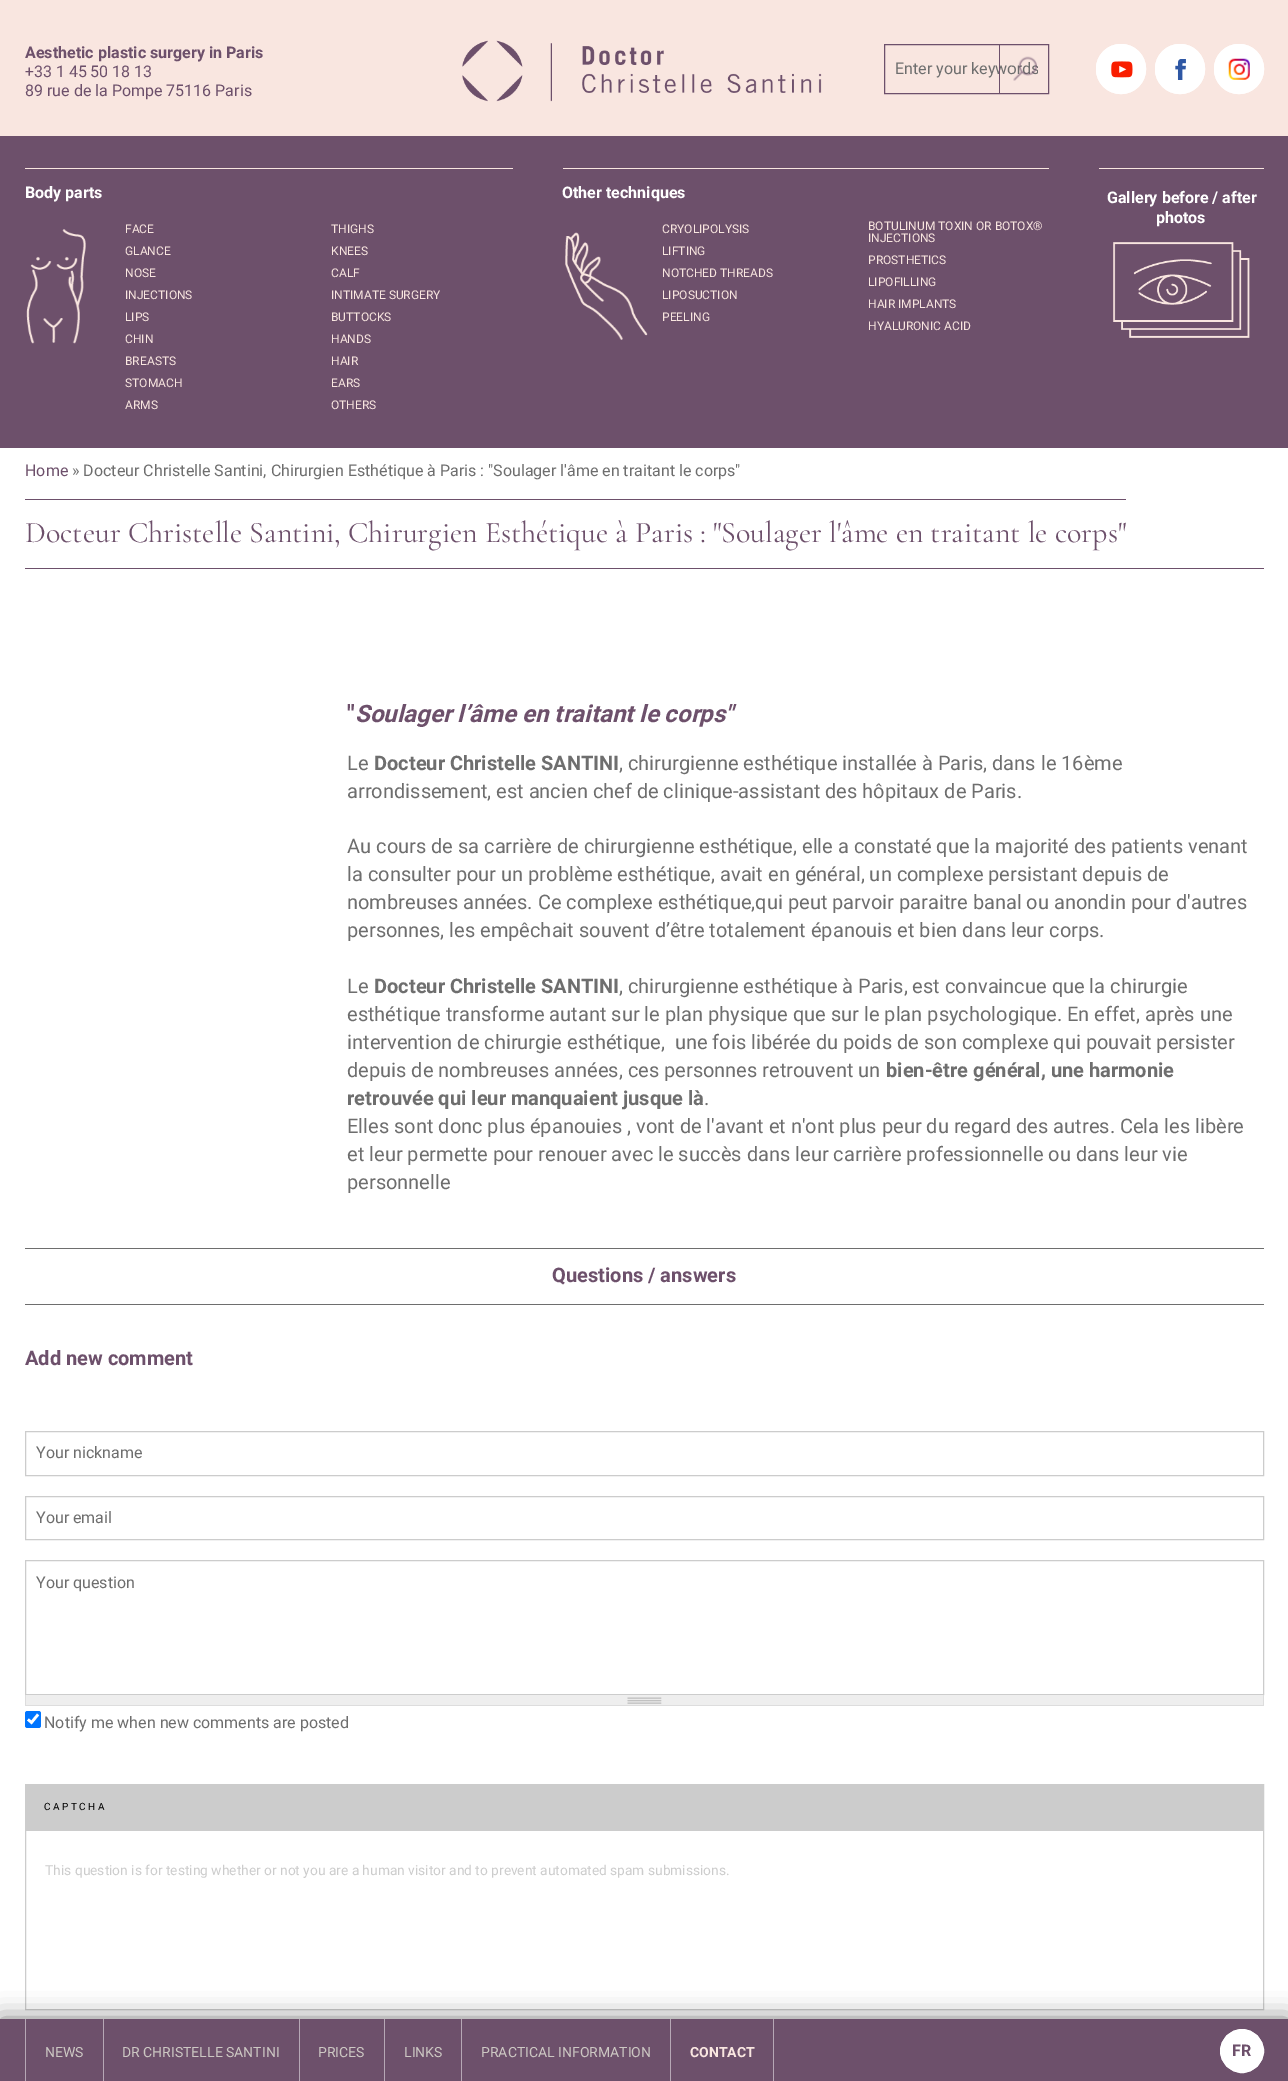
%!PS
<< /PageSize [1288 2081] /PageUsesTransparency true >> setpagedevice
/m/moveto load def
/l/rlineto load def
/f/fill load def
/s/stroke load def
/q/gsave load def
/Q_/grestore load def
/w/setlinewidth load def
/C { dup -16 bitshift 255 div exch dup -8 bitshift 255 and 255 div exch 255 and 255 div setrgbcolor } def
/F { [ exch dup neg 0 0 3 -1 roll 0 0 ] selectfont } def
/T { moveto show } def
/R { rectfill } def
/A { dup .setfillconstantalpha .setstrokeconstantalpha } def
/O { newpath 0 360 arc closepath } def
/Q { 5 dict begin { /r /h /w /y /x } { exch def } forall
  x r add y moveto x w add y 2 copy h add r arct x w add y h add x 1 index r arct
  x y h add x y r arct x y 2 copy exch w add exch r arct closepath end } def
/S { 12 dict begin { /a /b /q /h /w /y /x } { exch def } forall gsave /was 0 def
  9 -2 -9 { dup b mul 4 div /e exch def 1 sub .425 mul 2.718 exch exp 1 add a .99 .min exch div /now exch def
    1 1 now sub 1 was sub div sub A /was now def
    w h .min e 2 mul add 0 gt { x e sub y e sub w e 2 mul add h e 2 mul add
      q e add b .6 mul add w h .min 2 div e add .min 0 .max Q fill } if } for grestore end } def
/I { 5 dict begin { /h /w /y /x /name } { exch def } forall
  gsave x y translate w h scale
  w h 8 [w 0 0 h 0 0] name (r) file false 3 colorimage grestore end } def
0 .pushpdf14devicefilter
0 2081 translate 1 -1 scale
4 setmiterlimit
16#FFFFFF C
0 0 1288 2081 R
16#F9E6E0 C
0 0 1288 136 R
/Heebo-Bold 16 F
16#6D506B C
(Aesthetic plastic surgery in Paris) 25 58 T
/Heebo-Regular 16 F
(+33 1 45 50 18 13) 25 77 T
(89 rue de la Pompe 75116 Paris) 25 96 T
(1.rgb) 462 40 360 62 I
884.5 44.5 164 49 rectstroke
q
895 58 143 22 rectclip
16#6E6E6E C
(Enter your keywords) 895 74 T
Q_
(2.rgb) 1013 56 24 25 I
999 44 1 50 R
16#FFFFFF C
1121 69 25 O f
(3.rgb) 1111 61 22 17 I
1121 69 24.5 O s
1180 69 25 O f
(4.rgb) 1175 59 11 21 I
1180 69 24.5 O s
1239 69 25 O f
(5.rgb) 1228 58 22 22 I
1239 69 24.5 O s
16#6D506B C
0 136 1288 312 R
16#F9E6E0 C
25 168 488 1 R
/Heebo-Bold 16 F
16#FFFFFF C
(Body parts) 25 198 T
(6.rgb) 26 229 60 115 I
/Heebo-Regular 12 F
16#F9E6E0 C
(FACE) 125 233 T
(THIGHS) 331 233 T
(GLANCE) 125 255 T
(KNEES) 331 255 T
(NOSE) 125 277 T
(CALF) 331 277 T
(INJECTIONS) 125 299 T
(INTIMATE SURGERY) 331 299 T
(LIPS) 125 321 T
(BUTTOCKS) 331 321 T
(CHIN) 125 343 T
(HANDS) 331 343 T
(BREASTS) 125 365 T
(HAIR) 331 365 T
(STOMACH) 125 387 T
(EARS) 331 387 T
(ARMS) 125 409 T
(OTHERS) 331 409 T
563 168 486 1 R
/Heebo-Bold 16 F
16#FFFFFF C
(Other techniques) 562 198 T
(7.rgb) 565 232 83 108 I
/Heebo-Regular 12 F
16#F9E6E0 C
(CRYOLIPOLYSIS) 662 233 T
(BOTULINUM TOXIN OR BOTOX®) 868 230 T
(INJECTIONS) 868 242 T
(LIFTING) 662 255 T
(PROSTHETICS) 868 264 T
(NOTCHED THREADS) 662 277 T
(LIPOFILLING) 868 286 T
(LIPOSUCTION) 662 299 T
(HAIR IMPLANTS) 868 308 T
(PEELING) 662 321 T
(HYALURONIC ACID) 868 330 T
1099 168 165 1 R
(8.rgb) 1113 242 137 96 I
/Heebo-Bold 16 F
16#FFFFFF C
(Gallery before / after) 1107 203 T
(photos) 1156 223 T
/Heebo-Regular 16 F
16#6D506B C
(Home) 25 476 T
16#6E6E6E C
(» Docteur Christelle Santini, Chirurgien Esthétique à Paris : "Soulager l'âme en traitant le corps") 72 476 T
16#6D506B C
25 568 1239 1 R
25 499 1101 1 R
/CormorantGaramond-Light 30 F
(Docteur Christelle Santini, Chirurgien Esthétique à Paris : "Soulager l'âme en traitant le corps") 25 542 T
/Heebo-Bold 24 F
(") 347 722 T
/Heebo-BoldItalic 24 F
(Soulager l’âme en traitant le corps") 355 722 T
/Heebo-Regular 20 F
16#6E6E6E C
(Le) 347 770 T
/Heebo-Bold 20 F
(Docteur Christelle SANTINI) 374 770 T
/Heebo-Regular 20 F
(, chirurgienne esthétique installée à Paris, dans le 16ème) 619 770 T
(arrondissement, est ancien chef de clinique-assistant des hôpitaux de Paris.) 347 798 T
(Au cours de sa carrière de chirurgienne esthétique, elle a constaté que la majorité des patients venant) 347 853 T
(la consulter pour un problème esthétique, avait en général, un complexe persistant depuis de) 347 881 T
(nombreuses années. Ce complexe esthétique,qui peut parvoir paraitre banal ou anondin pour d'autres) 347 909 T
(personnes, les empêchait souvent d’être totalement épanouis et bien dans leur corps.) 347 937 T
(Le) 347 993 T
/Heebo-Bold 20 F
(Docteur Christelle SANTINI) 374 993 T
/Heebo-Regular 20 F
(, chirurgienne esthétique à Paris, est convaincue que la chirurgie) 619 993 T
(esthétique transforme autant sur le plan physique que sur le plan psychologique. En effet, après une) 347 1021 T
(intervention de chirurgie esthétique,  une fois libérée du poids de son complexe qui pouvait persister) 347 1049 T
(depuis de nombreuses années, ces personnes retrouvent un) 347 1077 T
/Heebo-Bold 20 F
(bien-être général, une harmonie) 886 1077 T
(retrouvée qui leur manquaient jusque là) 347 1105 T
/Heebo-Regular 20 F
(.) 704 1105 T
(Elles sont donc plus épanouies , vont de l'avant et n'ont plus peur du regard des autres. Cela les libère) 347 1133 T
(et leur permette pour renouer avec le succès dans leur carrière professionnelle ou dans leur vie) 347 1161 T
(personnelle) 347 1189 T
25 1248 1239 1 R
25 1304 1239 1 R
/Heebo-Bold 20 F
16#6D506B C
(Questions / answers) 552 1282 T
(Add new comment) 25 1365 T
16#CCCCCC C
25.5 1431.5 1238 44 rectstroke
/Heebo-Regular 16 F
16#6E6E6E C
(Your nickname) 36 1458 T
16#CCCCCC C
25.5 1496.5 1238 43 rectstroke
16#6E6E6E C
(Your email) 36 1523 T
16#CCCCCC C
25.5 1560.5 1238 134 rectstroke
16#6E6E6E C
(Your question) 36 1588 T
16#EEEEEE C
26 1695 1237 10 R
(9.rgb) 627 1697 35 7 I
16#DDDDDD C
1263 1695 1 11 R
25 1705 1239 1 R
25 1695 1 11 R
16#0075FF C
25 1711 16 17 2.5 Q f
16#FFFFFF C
2.6 w
28 1719.5 m 3.5 3 l 6.5 -8 l s
16#6E6E6E C
(Notify me when new comments are posted) 44 1728 T
16#CCCCCC C
1 w
25.5 1784.5 1238 225 rectstroke
26 1785 1237 46 R
/Heebo-Regular 10 F
16#000000 C
44 1810 m 2.5 0 (CAPTCHA) ashow
/Heebo-Regular 13.75 F
16#CCCCCC C
(This question is for testing whether or not you are a human visitor and to prevent automated spam submissions.) 45 1875 T
16#000000 C
0 2019 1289 62 0 12.5 .5 S
16#6D506B C
0 2019 1288 62 R
16#B6A7B5 C
103 2019 1 62 R
25 2019 1 62 R
/Heebo-Regular 14 F
16#CDC8C3 C
(NEWS) 45 2057 T
16#B6A7B5 C
299 2019 1 62 R
16#CDC8C3 C
(DR CHRISTELLE SANTINI) 122 2057 T
16#B6A7B5 C
384 2019 1 62 R
16#CDC8C3 C
(PRICES) 318 2057 T
16#B6A7B5 C
461 2019 1 62 R
16#CDC8C3 C
(LINKS) 404 2057 T
16#B6A7B5 C
670 2019 1 62 R
16#CDC8C3 C
(PRACTICAL INFORMATION) 481 2057 T
16#B6A7B5 C
773 2019 1 62 R
/Heebo-Bold 14 F
16#F9E6E0 C
(CONTACT) 690 2057 T
16#FFFFFF C
1242 2051 21.5 O q f Q_
s
/Heebo-Bold 16 F
16#6D506B C
(FR) 1232 2056 T
.poppdf14devicefilter showpage
